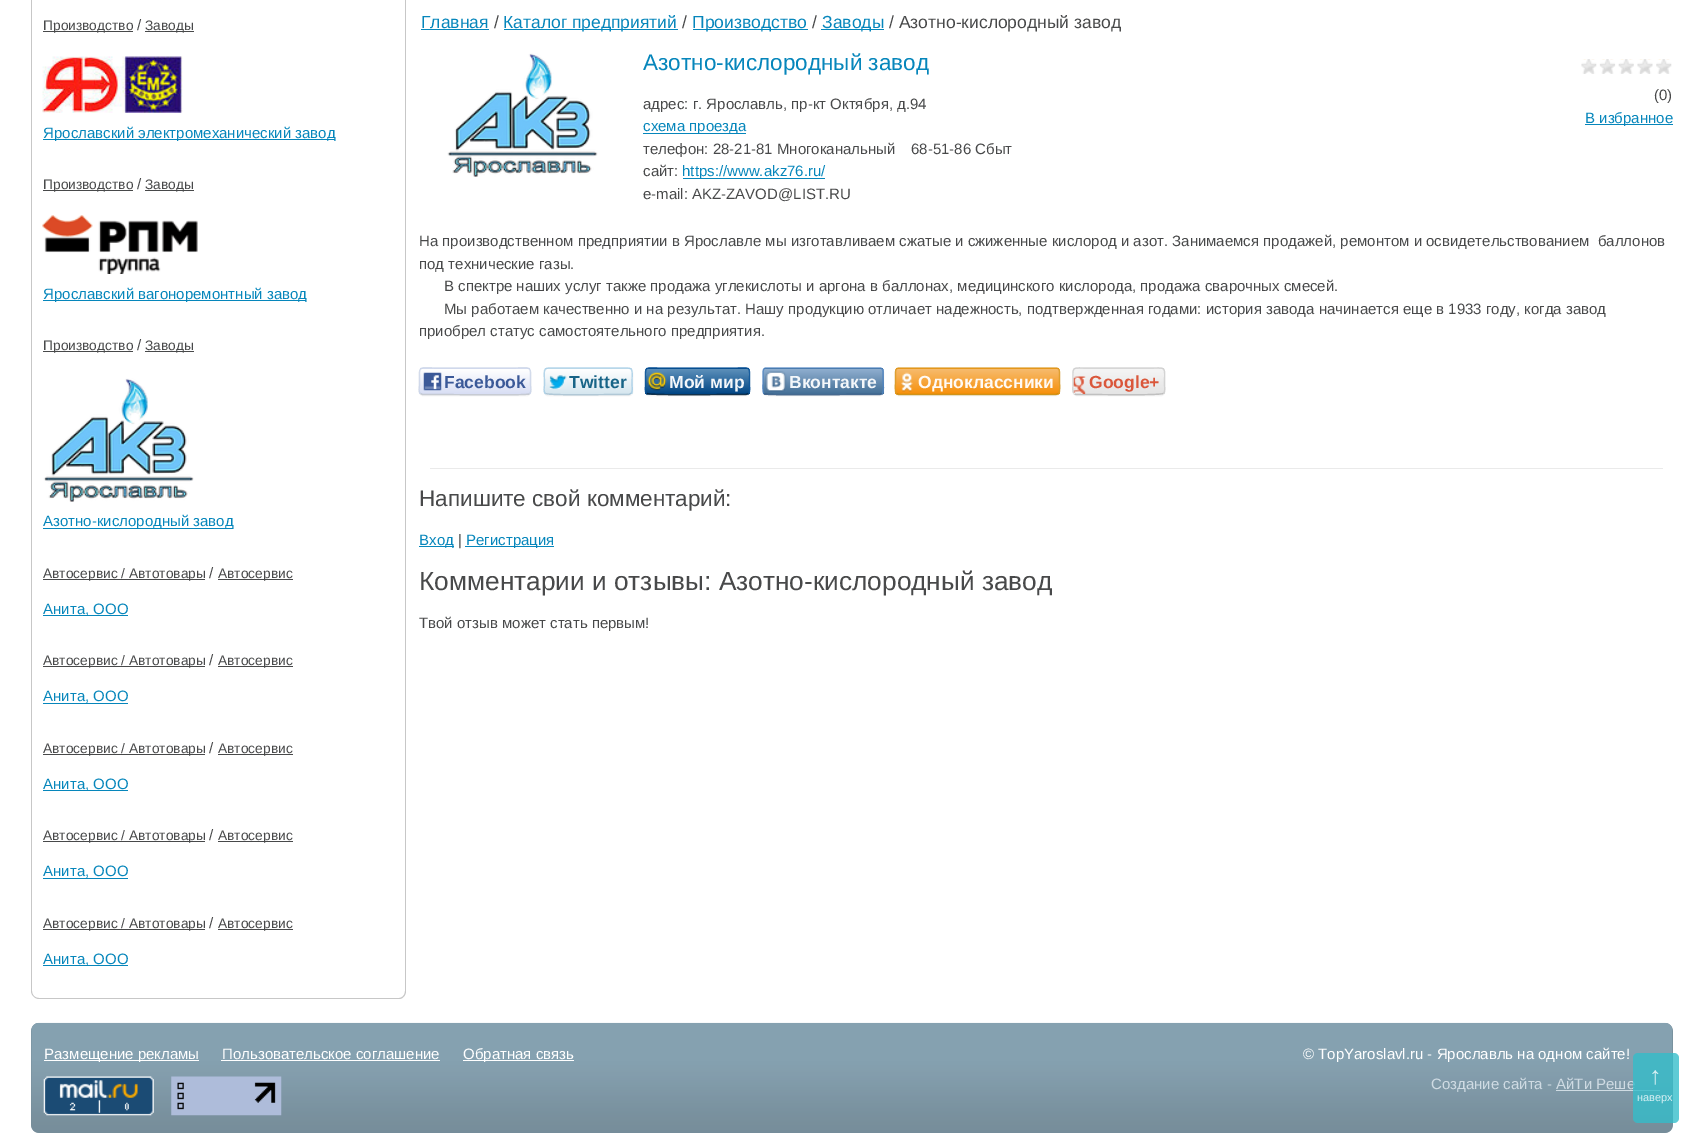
%!PS
<< /PageSize [1703 1147] /PageUsesTransparency true >> setpagedevice
/m/moveto load def
/l/rlineto load def
/c/rcurveto load def
/z/closepath load def
/f/fill load def
/s/stroke load def
/q/gsave load def
/Q_/grestore load def
/w/setlinewidth load def
/C { dup -16 bitshift 255 div exch dup -8 bitshift 255 and 255 div exch 255 and 255 div setrgbcolor } def
/F { [ exch dup neg 0 0 3 -1 roll 0 0 ] selectfont } def
/T { moveto show } def
/R { rectfill } def
/A { dup .setfillconstantalpha .setstrokeconstantalpha } def
/Q { 5 dict begin { /r /h /w /y /x } { exch def } forall
  x r add y moveto x w add y 2 copy h add r arct x w add y h add x 1 index r arct
  x y h add x y r arct x y 2 copy exch w add exch r arct closepath end } def
/S { 12 dict begin { /a /b /q /h /w /y /x } { exch def } forall gsave /was 0 def
  9 -2 -9 { dup b mul 4 div /e exch def 1 sub .425 mul 2.718 exch exp 1 add a .99 .min exch div /now exch def
    1 1 now sub 1 was sub div sub A /was now def
    w h .min e 2 mul add 0 gt { x e sub y e sub w e 2 mul add h e 2 mul add
      q e add b .6 mul add w h .min 2 div e add .min 0 .max Q fill } if } for grestore end } def
/I { 5 dict begin { /h /w /y /x /name } { exch def } forall
  gsave x y translate w h scale
  w h 8 [w 0 0 h 0 0] name (r) file false 3 colorimage grestore end } def
0 .pushpdf14devicefilter
0 1147 translate 1 -1 scale
4 setmiterlimit
16#FFFFFF C
0 0 1703 1147 R
16#C7C7C7 C
31 -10 m 375 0 l 0 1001 l 0 4 -3 8 -7 8 c -360 0 l -4 0 -8 -4 -8 -8 c z 32 -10 m 373 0 l 0 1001 l 0 4 -3 7 -6 7 c -360 0 l -4 0 -7 -3 -7 -7 c z eofill
16#48494A C
43 31 90 1 R
/LiberationSans-Regular 13.75 F
(Производство) 43 30 T
/LiberationSans-Regular 15 F
(/) 137 30 T
145 31 49 1 R
/LiberationSans-Regular 13.75 F
(Заводы) 145 30 T
(1.rgb) 42 56 141 57 I
16#0686BB C
43 139 292 1 R
/LiberationSans-Regular 15 F
(Ярославский электромеханический завод) 43 138 T
16#48494A C
43 190 90 1 R
/LiberationSans-Regular 13.75 F
(Производство) 43 189 T
/LiberationSans-Regular 15 F
(/) 137 189 T
145 190 49 1 R
/LiberationSans-Regular 13.75 F
(Заводы) 145 189 T
(2.rgb) 42 215 156 59 I
16#0686BB C
43 300 263 1 R
/LiberationSans-Regular 15 F
(Ярославский вагоноремонтный завод) 43 299 T
16#48494A C
43 351 90 1 R
/LiberationSans-Regular 13.75 F
(Производство) 43 350 T
/LiberationSans-Regular 15 F
(/) 137 350 T
145 351 49 1 R
/LiberationSans-Regular 13.75 F
(Заводы) 145 350 T
(3.rgb) 43 378 151 124 I
16#0686BB C
43 528 190 1 R
/LiberationSans-Regular 15 F
(Азотно-кислородный завод) 43 526 T
16#48494A C
43 579 162 1 R
/LiberationSans-Regular 13.75 F
(Автосервис / Автотовары) 43 578 T
/LiberationSans-Regular 15 F
(/) 209 578 T
218 579 75 1 R
/LiberationSans-Regular 13.75 F
(Автосервис) 218 578 T
16#0686BB C
43 615 85 1 R
/LiberationSans-Regular 15 F
(Анита, ООО) 43 614 T
16#48494A C
43 666 162 1 R
/LiberationSans-Regular 13.75 F
(Автосервис / Автотовары) 43 665 T
/LiberationSans-Regular 15 F
(/) 209 665 T
218 666 75 1 R
/LiberationSans-Regular 13.75 F
(Автосервис) 218 665 T
/LiberationSans-Regular 15 F
16#0686BB C
(Анита, ООО) 43 701 T
43 703 85 1 R
16#48494A C
43 754 162 1 R
/LiberationSans-Regular 13.75 F
(Автосервис / Автотовары) 43 753 T
/LiberationSans-Regular 15 F
(/) 209 753 T
218 754 75 1 R
/LiberationSans-Regular 13.75 F
(Автосервис) 218 753 T
16#0686BB C
43 790 85 1 R
/LiberationSans-Regular 15 F
(Анита, ООО) 43 789 T
16#48494A C
43 841 162 1 R
/LiberationSans-Regular 13.75 F
(Автосервис / Автотовары) 43 840 T
/LiberationSans-Regular 15 F
(/) 209 840 T
218 841 75 1 R
/LiberationSans-Regular 13.75 F
(Автосервис) 218 840 T
/LiberationSans-Regular 15 F
16#0686BB C
(Анита, ООО) 43 876 T
43 878 85 1 R
16#48494A C
43 929 162 1 R
/LiberationSans-Regular 13.75 F
(Автосервис / Автотовары) 43 928 T
/LiberationSans-Regular 15 F
(/) 209 928 T
218 929 75 1 R
/LiberationSans-Regular 13.75 F
(Автосервис) 218 928 T
16#0686BB C
43 965 85 1 R
/LiberationSans-Regular 15 F
(Анита, ООО) 43 964 T
/LiberationSans-Regular 17.5 F
(Главная) 421 28 T
421 29 68 1 R
16#48494A C
(/) 494 28 T
16#0686BB C
504 29 174 1 R
(Каталог предприятий) 503 28 T
16#48494A C
(/) 682 28 T
16#0686BB C
693 29 115 1 R
(Производство) 692 28 T
16#48494A C
(/) 812 28 T
16#0686BB C
821 29 63 1 R
(Заводы) 822 28 T
16#48494A C
(/ Азотно-кислородный завод) 889 28 T
(4.rgb) 447 53 151 124 I
/LiberationSans-Regular 22.5 F
16#0686BB C
(Азотно-кислородный завод) 643 70 T
/LiberationSans-Regular 15 F
16#48494A C
(адрес: г. Ярославль, пр-кт Октября, д.94) 643 109 T
16#0686BB C
643 133 103 1 R
(схема проезда) 643 131 T
16#48494A C
(телефон: 28-21-81 Многоканальный) 643 154 T
(68-51-86 Сбыт) 911 154 T
(сайт:) 643 176 T
16#0686BB C
683 178 142 1 R
(https://www.akz76.ru/) 682 176 T
16#48494A C
(e-mail: AKZ-ZAVOD@LIST.RU) 643 199 T
(5.rgb) 1581 59 91 15 I
(\(0\)) 1654 100 T
16#0686BB C
1585 124 88 1 R
(В избранное) 1585 123 T
16#48494A C
(На производственном предприятии в Ярославле мы изготавливаем сжатые и сжиженные кислород и азот. Занимаемся продажей, ремонтом и освидетельствованием  баллонов) 419 246 T
(под технические газы.) 419 269 T
(В спектре наших услуг также продажа углекислоты и аргона в баллонах, медицинского кислорода, продажа сварочных смесей.) 444 291 T
(Мы работаем качественно и на результат. Нашу продукцию отличает надежность, подтвержденная годами: история завода начинается еще в 1933 году, когда завод) 444 314 T
(приобрел статус самостоятельного предприятия.) 419 336 T
16#000000 C
419 369 112 27 4 .5 .05 S
q
419 368 112 27 4 Q clip newpath
q 419 368 m 112 0 l 0 1 l -112 0 l z clip newpath
<< /ShadingType 2 /ColorSpace /DeviceRGB /Coords [475 344 475 369] /Extend [true true] /Function << /FunctionType 2 /Domain [0 1] /C0 [1 1 1] /C1 [.847 .871 .957] /N 1 >> >> shfill Q_
q 419 369 m 112 0 l 0 25 l -112 0 l z clip newpath
<< /ShadingType 2 /ColorSpace /DeviceRGB /Coords [475 369 475 394] /Extend [true true] /Function << /FunctionType 2 /Domain [0 1] /C0 [1 1 1] /C1 [.847 .871 .957] /N 1 >> >> shfill Q_
Q_
0.8 A
16#BDC2CB C
1.2 w
529.5 393.5 m -.5 .5 l -2 1.5 -79.5 .5 -89 .5 c -17.5 0 l -2 -1 l s
16#CAD4E7 C
420.5 393.5 m -2.5 -2 -1 -6.5 -1 -9 c 0 -20.5 -3 -16.5 20.5 -16.5 c 70 0 l 23.5 0 20.5 -4 20.5 16.5 c 0 2.5 1.5 7 -1 9 c s
1 A
(6.rgb) 423 372 19 19 I
/LiberationSans-Bold 17.5 F
16#3B5998 C
(Facebook) 444 388 T
16#000000 C
544 369 89 27 4 .5 .05 S
q
544 368 89 27 4 Q clip newpath
q 544 368 m 89 0 l 0 1 l -89 0 l z clip newpath
<< /ShadingType 2 /ColorSpace /DeviceRGB /Coords [588 344 588 369] /Extend [true true] /Function << /FunctionType 2 /Domain [0 1] /C0 [1 1 1] /C1 [.835 .902 .937] /N 1 >> >> shfill Q_
q 544 369 m 89 0 l 0 25 l -89 0 l z clip newpath
<< /ShadingType 2 /ColorSpace /DeviceRGB /Coords [588 369 588 394] /Extend [true true] /Function << /FunctionType 2 /Domain [0 1] /C0 [1 1 1] /C1 [.835 .902 .937] /N 1 >> >> shfill Q_
q 544 394 m 89 0 l 0 1 l -89 0 l z clip newpath
<< /ShadingType 2 /ColorSpace /DeviceRGB /Coords [588 394 588 419] /Extend [true true] /Function << /FunctionType 2 /Domain [0 1] /C0 [1 1 1] /C1 [.835 .902 .937] /N 1 >> >> shfill Q_
Q_
0.8 A
16#9EBACC C
631 393.5 m -2 1 l -14 0 l -7.5 0 -67.5 1 -69.5 -1 c s
16#A4CCE5 C
545.5 393.5 m -2.5 -2 -1 -6.5 -1 -9 c 0 -19 -3.5 -16.5 16.5 -16.5 c 54 0 l 20.5 0 17 -2.5 17 16.5 c 0 2.5 1 7 -1 9 c s
1 A
(7.rgb) 549 375 18 14 I
16#186487 C
(Twitter) 569 388 T
16#000000 C
645 369 105 27 4 .5 .05 S
q
645 368 105 27 4 Q clip newpath
q 645 368 m 105 0 l 0 1 l -105 0 l z clip newpath
<< /ShadingType 2 /ColorSpace /DeviceRGB /Coords [698 344 698 369] /Extend [true true] /Function << /FunctionType 2 /Domain [0 1] /C0 [.365 .565 .729] /C1 [0 .271 .518] /N 1 >> >> shfill Q_
q 645 369 m 105 0 l 0 25 l -105 0 l z clip newpath
<< /ShadingType 2 /ColorSpace /DeviceRGB /Coords [698 369 698 394] /Extend [true true] /Function << /FunctionType 2 /Domain [0 1] /C0 [.365 .565 .729] /C1 [0 .271 .518] /N 1 >> >> shfill Q_
q 645 394 m 105 0 l 0 1 l -105 0 l z clip newpath
<< /ShadingType 2 /ColorSpace /DeviceRGB /Coords [698 394 698 419] /Extend [true true] /Function << /FunctionType 2 /Domain [0 1] /C0 [.365 .565 .729] /C1 [0 .271 .518] /N 1 >> >> shfill Q_
Q_
0.8 A
16#031B30 C
748.5 393.5 m -2.5 1 l -16 0 l -9 0 -81 1 -83 -1 c -.5 0 l s
16#0B5499 C
646.5 393.5 m -2 -2 -1 -6.5 -1 -9 c 0 -20.5 -3 -16.5 19.5 -16.5 c 65 0 l 22.5 0 19.5 -4 19.5 16.5 c 0 2.5 1 7 -1 9 c s
1 A
(8.rgb) 647 371 20 20 I
16#F4F7FA C
(Мой мир) 669 388 T
16#000000 C
763 369 121 27 4 .5 .05 S
q
763 368 121 27 4 Q clip newpath
q 763 368 m 121 0 l 0 1 l -121 0 l z clip newpath
<< /ShadingType 2 /ColorSpace /DeviceRGB /Coords [823 344 823 369] /Extend [true true] /Function << /FunctionType 2 /Domain [0 1] /C0 [.561 .682 .812] /C1 [.263 .435 .588] /N 1 >> >> shfill Q_
q 763 369 m 121 0 l 0 25 l -121 0 l z clip newpath
<< /ShadingType 2 /ColorSpace /DeviceRGB /Coords [823 369 823 394] /Extend [true true] /Function << /FunctionType 2 /Domain [0 1] /C0 [.561 .682 .812] /C1 [.263 .435 .588] /N 1 >> >> shfill Q_
q 763 394 m 121 0 l 0 1 l -121 0 l z clip newpath
<< /ShadingType 2 /ColorSpace /DeviceRGB /Coords [823 394 823 419] /Extend [true true] /Function << /FunctionType 2 /Domain [0 1] /C0 [.561 .682 .812] /C1 [.263 .435 .588] /N 1 >> >> shfill Q_
Q_
0.8 A
16#34587F C
882 393.5 m -2 1 l -19 0 l -10 0 -94 1 -96.5 -.5 c -.5 -.5 l s
16#4E83C1 C
764 393.5 m -2 -2 -1 -9.5 -1 -12.5 c 0 -6.5 l 0 -2.5 -.5 -6.5 3 -6.5 c 114 0 l 3.5 0 3 4 3 6.5 c 0 6.5 l 0 3 1.5 10.5 -1 12.5 c s
1 A
(9.rgb) 765 371 22 21 I
16#F4F7FA C
(Вконтакте) 789 388 T
16#000000 C
895 369 165 27 4 .5 .05 S
q
895 368 165 27 4 Q clip newpath
q 895 368 m 165 0 l 0 1 l -165 0 l z clip newpath
<< /ShadingType 2 /ColorSpace /DeviceRGB /Coords [978 344 978 369] /Extend [true true] /Function << /FunctionType 2 /Domain [0 1] /C0 [.965 .733 .427] /C1 [.965 .565 .043] /N 1 >> >> shfill Q_
q 895 369 m 165 0 l 0 25 l -165 0 l z clip newpath
<< /ShadingType 2 /ColorSpace /DeviceRGB /Coords [978 369 978 394] /Extend [true true] /Function << /FunctionType 2 /Domain [0 1] /C0 [.965 .733 .427] /C1 [.965 .565 .043] /N 1 >> >> shfill Q_
q 895 394 m 165 0 l 0 1 l -165 0 l z clip newpath
<< /ShadingType 2 /ColorSpace /DeviceRGB /Coords [978 394 978 419] /Extend [true true] /Function << /FunctionType 2 /Domain [0 1] /C0 [.965 .733 .427] /C1 [.965 .565 .043] /N 1 >> >> shfill Q_
Q_
0.8 A
16#C58907 C
1058.5 393.5 m -2.5 1 l -157.5 0 l -2 -1 l s
16#D99A26 C
896.5 393.5 m -2 -2 -1 -9.5 -1 -12.5 c 0 -6.5 l 0 -2.5 -.5 -6.5 3.5 -6.5 c 157 0 l 4 0 3.5 4 3.5 6.5 c 0 6.5 l 0 3 1 10.5 -1 12.5 c s
1 A
(10.rgb) 901 372 12 20 I
16#FFFAF5 C
(Одноклассники) 918 388 T
16#000000 C
1073 369 92 27 4 .5 .05 S
q
1073 368 92 27 4 Q clip newpath
q 1073 368 m 92 0 l 0 1 l -92 0 l z clip newpath
<< /ShadingType 2 /ColorSpace /DeviceRGB /Coords [1119 344 1119 369] /Extend [true true] /Function << /FunctionType 2 /Domain [0 1] /C0 [.961 .961 .961] /C1 [.894 .894 .894] /N 1 >> >> shfill Q_
q 1073 369 m 92 0 l 0 25 l -92 0 l z clip newpath
<< /ShadingType 2 /ColorSpace /DeviceRGB /Coords [1119 369 1119 394] /Extend [true true] /Function << /FunctionType 2 /Domain [0 1] /C0 [.961 .961 .961] /C1 [.894 .894 .894] /N 1 >> >> shfill Q_
q 1073 394 m 92 0 l 0 1 l -92 0 l z clip newpath
<< /ShadingType 2 /ColorSpace /DeviceRGB /Coords [1119 394 1119 419] /Extend [true true] /Function << /FunctionType 2 /Domain [0 1] /C0 [.961 .961 .961] /C1 [.894 .894 .894] /N 1 >> >> shfill Q_
Q_
0.8 A
16#B3B3B3 C
1163.5 393.5 m -.5 0 l -2 2 -64.5 1 -72.5 1 c -14.5 0 l -2 -1 l s
16#CCCCCC C
1074 393.5 m -2 -2 -1 -6.5 -1 -9 c 0 -19.5 -3 -16.5 17.5 -16.5 c 56.5 0 l 20.5 0 17.5 -3 17.5 16.5 c 0 2.5 1 7 -1 9 c s
1 A
(11.rgb) 1073 376 13 18 I
16#DA573B C
(Google+) 1089 388 T
16#EAEAEA C
430 468 1233 1 R
/LiberationSans-Regular 22.5 F
16#48494A C
(Напишите свой комментарий:) 419 506 T
16#0686BB C
419 546 35 1 R
/LiberationSans-Regular 15 F
(Вход) 419 545 T
16#48494A C
(|) 458 545 T
16#0686BB C
465 546 89 1 R
(Регистрация) 466 545 T
/LiberationSans-Regular 26.25 F
16#48494A C
(Комментарии и отзывы: Азотно-кислородный завод) 419 590 T
/LiberationSans-Regular 15 F
(Твой отзыв может стать первым!) 419 628 T
16#768D9A C
31 1023 1642 110 8 Q f
(12.rgb) 31 1022 1642 111 I
16#FFFFFF C
44 1060 155 1 R
(Размещение рекламы) 44 1059 T
(Пользовательское соглашение) 222 1059 T
221 1060 219 1 R
463 1060 111 1 R
(Обратная связь) 463 1059 T
(© TopYaroslavl.ru - Ярославль на одном сайте!) 1303 1059 T
16#CFDBE3 C
(Создание сайта - АйТи Реше) 1431 1089 T
1556 1090 104 1 R
(13.rgb) 43 1076 111 40 I
(14.rgb) 171 1076 111 40 I
0.79 A
16#33BDCA C
1633 1053 46 70 5 Q f
/LiberationSans-Regular 25 F
1 A
16#D8F0F3 C
(↑) 1649 1084 T
/LiberationSans-Regular 11 F
(наверх) 1637 1101 T
.poppdf14devicefilter showpage
